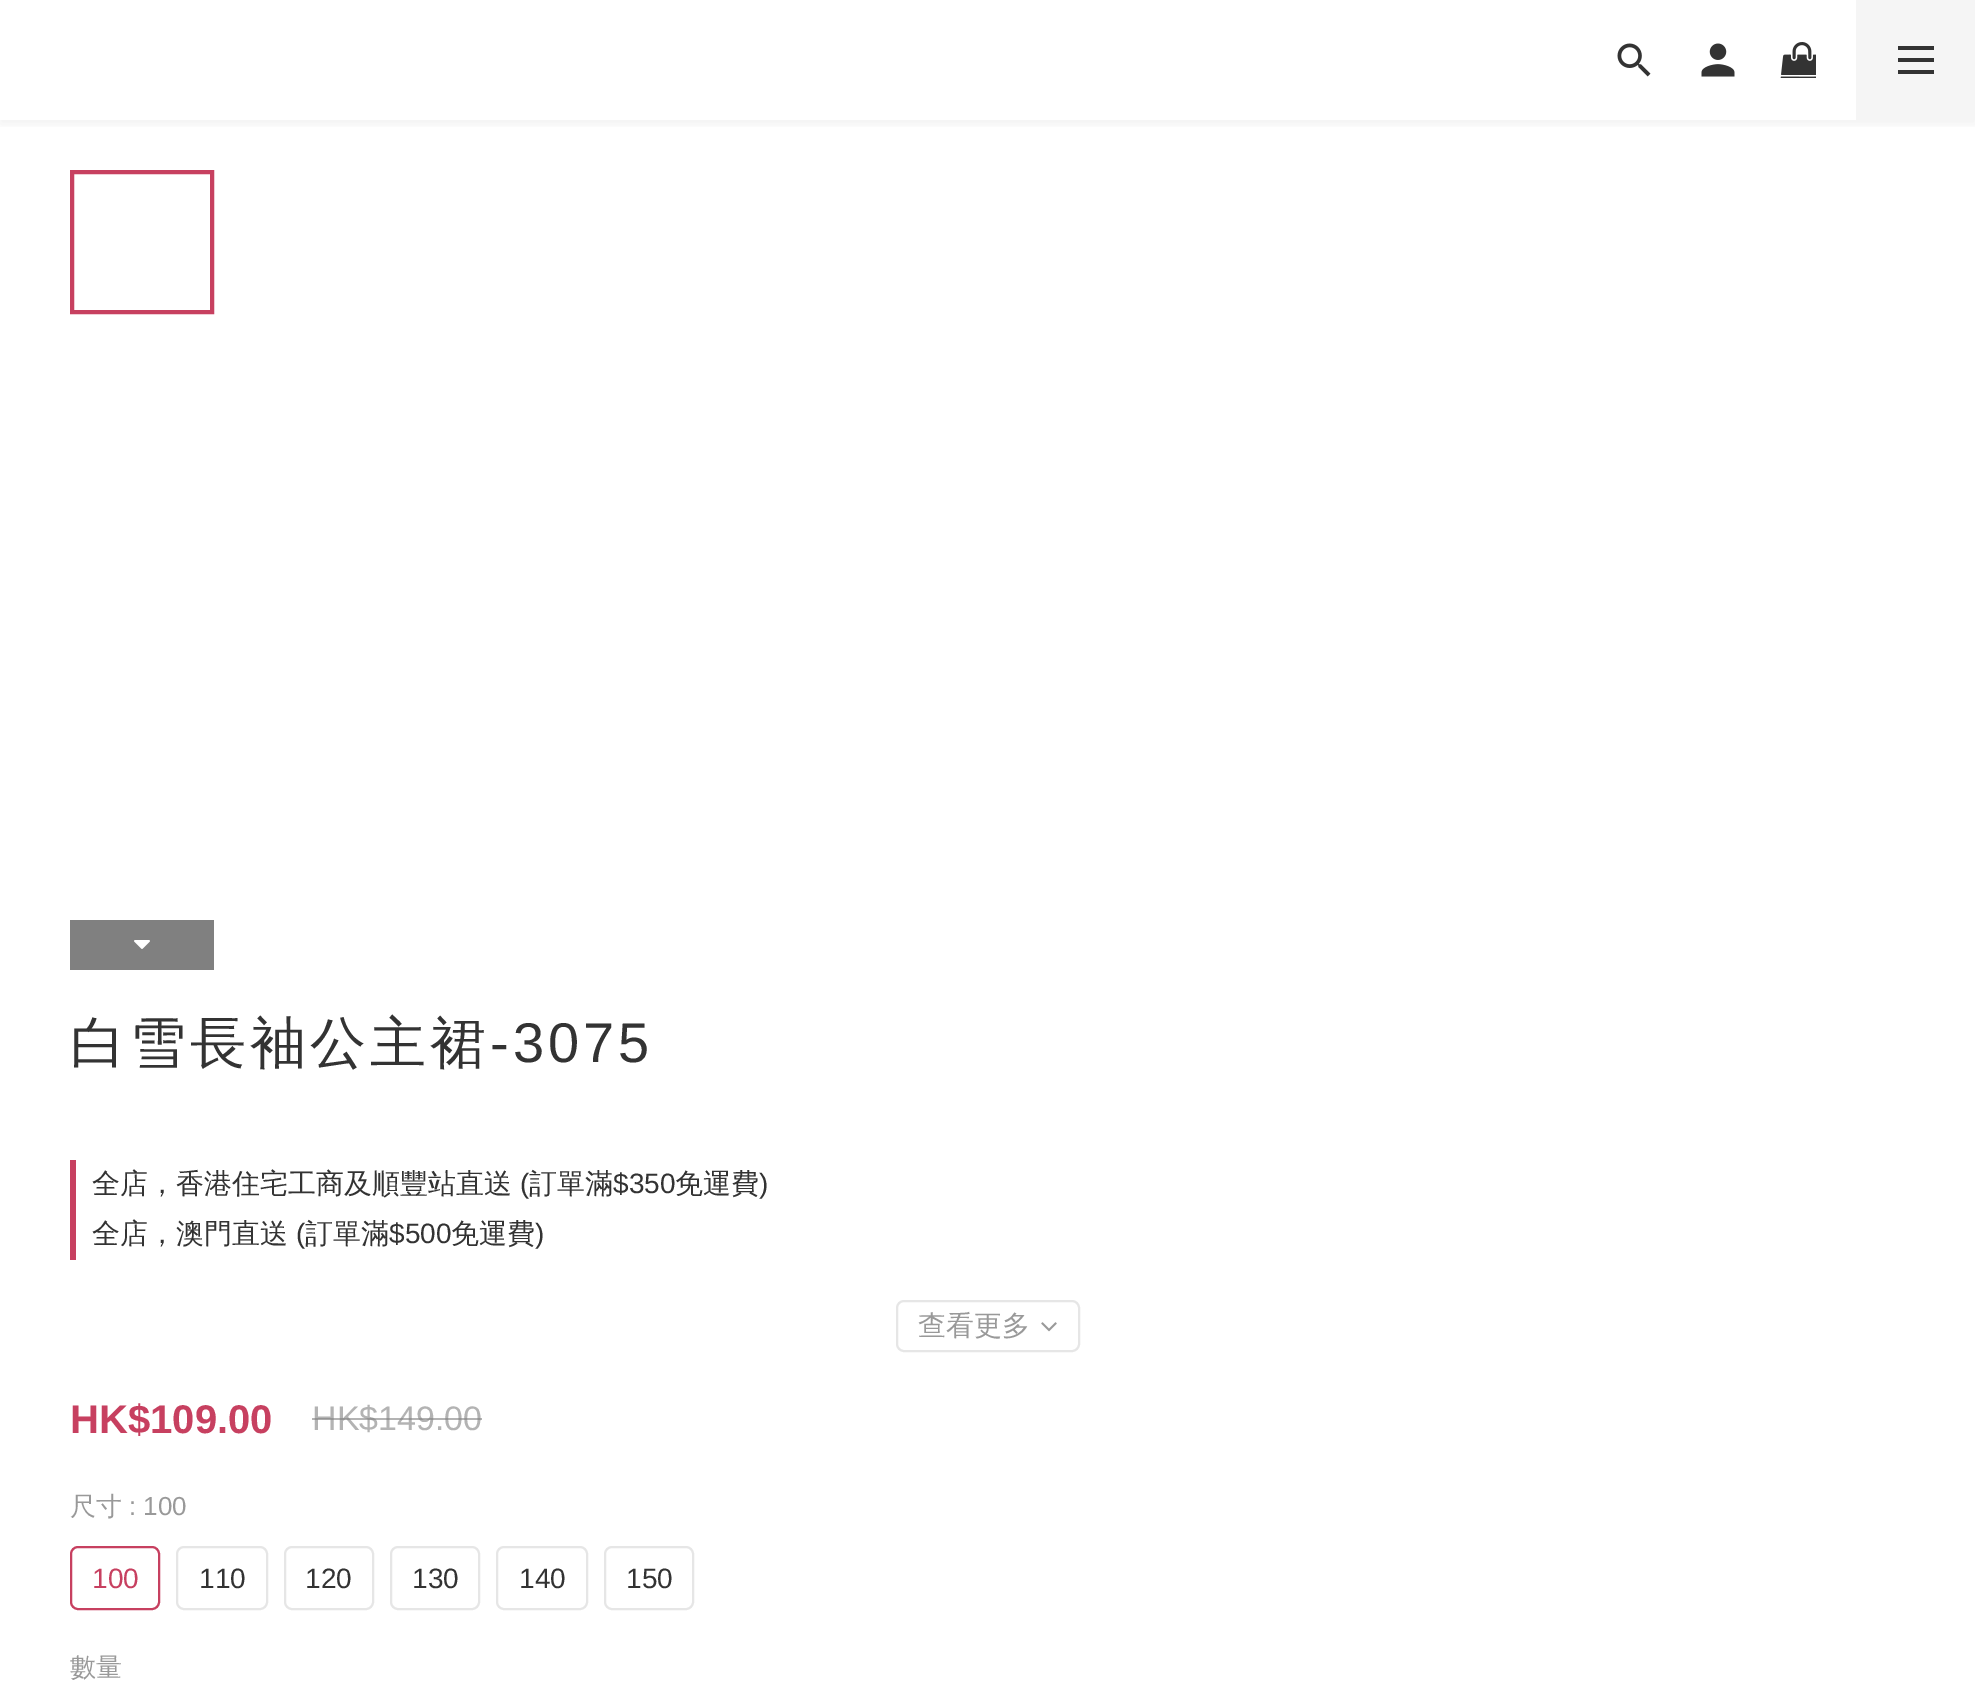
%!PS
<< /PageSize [1975 1684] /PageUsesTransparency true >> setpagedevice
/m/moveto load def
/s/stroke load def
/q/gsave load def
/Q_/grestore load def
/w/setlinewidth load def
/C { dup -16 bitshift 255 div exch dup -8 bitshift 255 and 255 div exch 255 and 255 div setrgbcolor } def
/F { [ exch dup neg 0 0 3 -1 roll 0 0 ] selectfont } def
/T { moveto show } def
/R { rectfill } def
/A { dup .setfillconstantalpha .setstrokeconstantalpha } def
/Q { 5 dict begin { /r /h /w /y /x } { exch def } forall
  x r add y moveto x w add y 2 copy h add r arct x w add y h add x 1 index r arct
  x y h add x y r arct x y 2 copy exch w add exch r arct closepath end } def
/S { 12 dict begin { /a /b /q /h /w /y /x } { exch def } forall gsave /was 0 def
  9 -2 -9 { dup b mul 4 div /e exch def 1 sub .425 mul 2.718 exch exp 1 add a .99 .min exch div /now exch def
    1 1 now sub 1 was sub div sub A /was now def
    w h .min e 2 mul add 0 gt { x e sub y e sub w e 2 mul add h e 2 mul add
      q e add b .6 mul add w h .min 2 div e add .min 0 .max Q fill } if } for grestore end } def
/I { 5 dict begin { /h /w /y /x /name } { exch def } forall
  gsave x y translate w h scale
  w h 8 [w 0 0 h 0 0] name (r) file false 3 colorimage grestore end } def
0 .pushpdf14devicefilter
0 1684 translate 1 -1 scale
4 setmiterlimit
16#FFFFFF C
0 0 1975 1684 R
q
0 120 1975 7 rectclip
16#000000 C
0 4 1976 120 0 6 .06 S
Q_
(1.rgb) 1617 43 34 34 I
(2.rgb) 1701 43 34 34 I
(3.rgb) 1780 42 36 36 I
16#F5F5F5 C
1856 0 119 120 R
16#333333 C
1898 58 36 4 R
1898 46 36 4 R
1898 70 36 4 R
16#C74060 C
4 w
72 172 140 140 rectstroke
16#808080 C
70 920 144 50 R
(4.rgb) 134 940 16 9 I
/WenQuanYiZenHei-Medium 56 F
16#333333 C
70 1062 m 4 0 (白雪長袖公主裙) ashow
/LiberationSans-Regular 56 F
490 1062 m 4 0 (-3075) ashow
16#C74060 C
70 1160 6 100 R
/WenQuanYiZenHei-Medium 28 F
16#333333 C
(全店，香港住宅工商及順豐站直送) 92 1193 T
/LiberationSans-Regular 28 F
(\() 520 1193 T
/WenQuanYiZenHei-Medium 28 F
(訂單滿) 529 1193 T
/LiberationSans-Regular 28 F
($350) 613 1193 T
/WenQuanYiZenHei-Medium 28 F
(免運費) 675 1193 T
/LiberationSans-Regular 28 F
(\)) 759 1193 T
/WenQuanYiZenHei-Medium 28 F
(全店，澳門直送) 92 1243 T
/LiberationSans-Regular 28 F
(\() 296 1243 T
/WenQuanYiZenHei-Medium 28 F
(訂單滿) 305 1243 T
/LiberationSans-Regular 28 F
($500) 389 1243 T
/WenQuanYiZenHei-Medium 28 F
(免運費) 451 1243 T
/LiberationSans-Regular 28 F
(\)) 535 1243 T
16#E6E6E6 C
2 w
897 1301 182 50 7 Q s
/WenQuanYiZenHei-Medium 28 F
16#999999 C
(查看更多) 918 1335 T
(5.rgb) 1041 1322 16 10 I
/LiberationSans-Bold 40 F
16#C74060 C
(HK$109.00) 70 1433 T
/LiberationSans-Regular 34 F
16#B3B3B3 C
(HK$149.00) 312 1430 T
0.6 A
16#808080 C
312 1418 170 2 R
/WenQuanYiZenHei-Medium 26 F
1 A
16#999999 C
(尺寸) 70 1515 T
/LiberationSans-Regular 26 F
(: 100) 129 1515 T
16#C74060 C
71 1547 88 62 7 Q s
/LiberationSans-Regular 28 F
(100) 92 1588 T
16#E6E6E6 C
177 1547 90 62 7 Q s
16#333333 C
(110) 199 1588 T
16#E6E6E6 C
285 1547 88 62 7 Q s
16#333333 C
(120) 305 1588 T
16#E6E6E6 C
391 1547 88 62 7 Q s
16#333333 C
(130) 412 1588 T
16#E6E6E6 C
497 1547 90 62 7 Q s
16#333333 C
(140) 519 1588 T
16#E6E6E6 C
605 1547 88 62 7 Q s
16#333333 C
(150) 626 1588 T
/WenQuanYiZenHei-Medium 26 F
16#999999 C
(數量) 70 1676 T
.poppdf14devicefilter showpage
